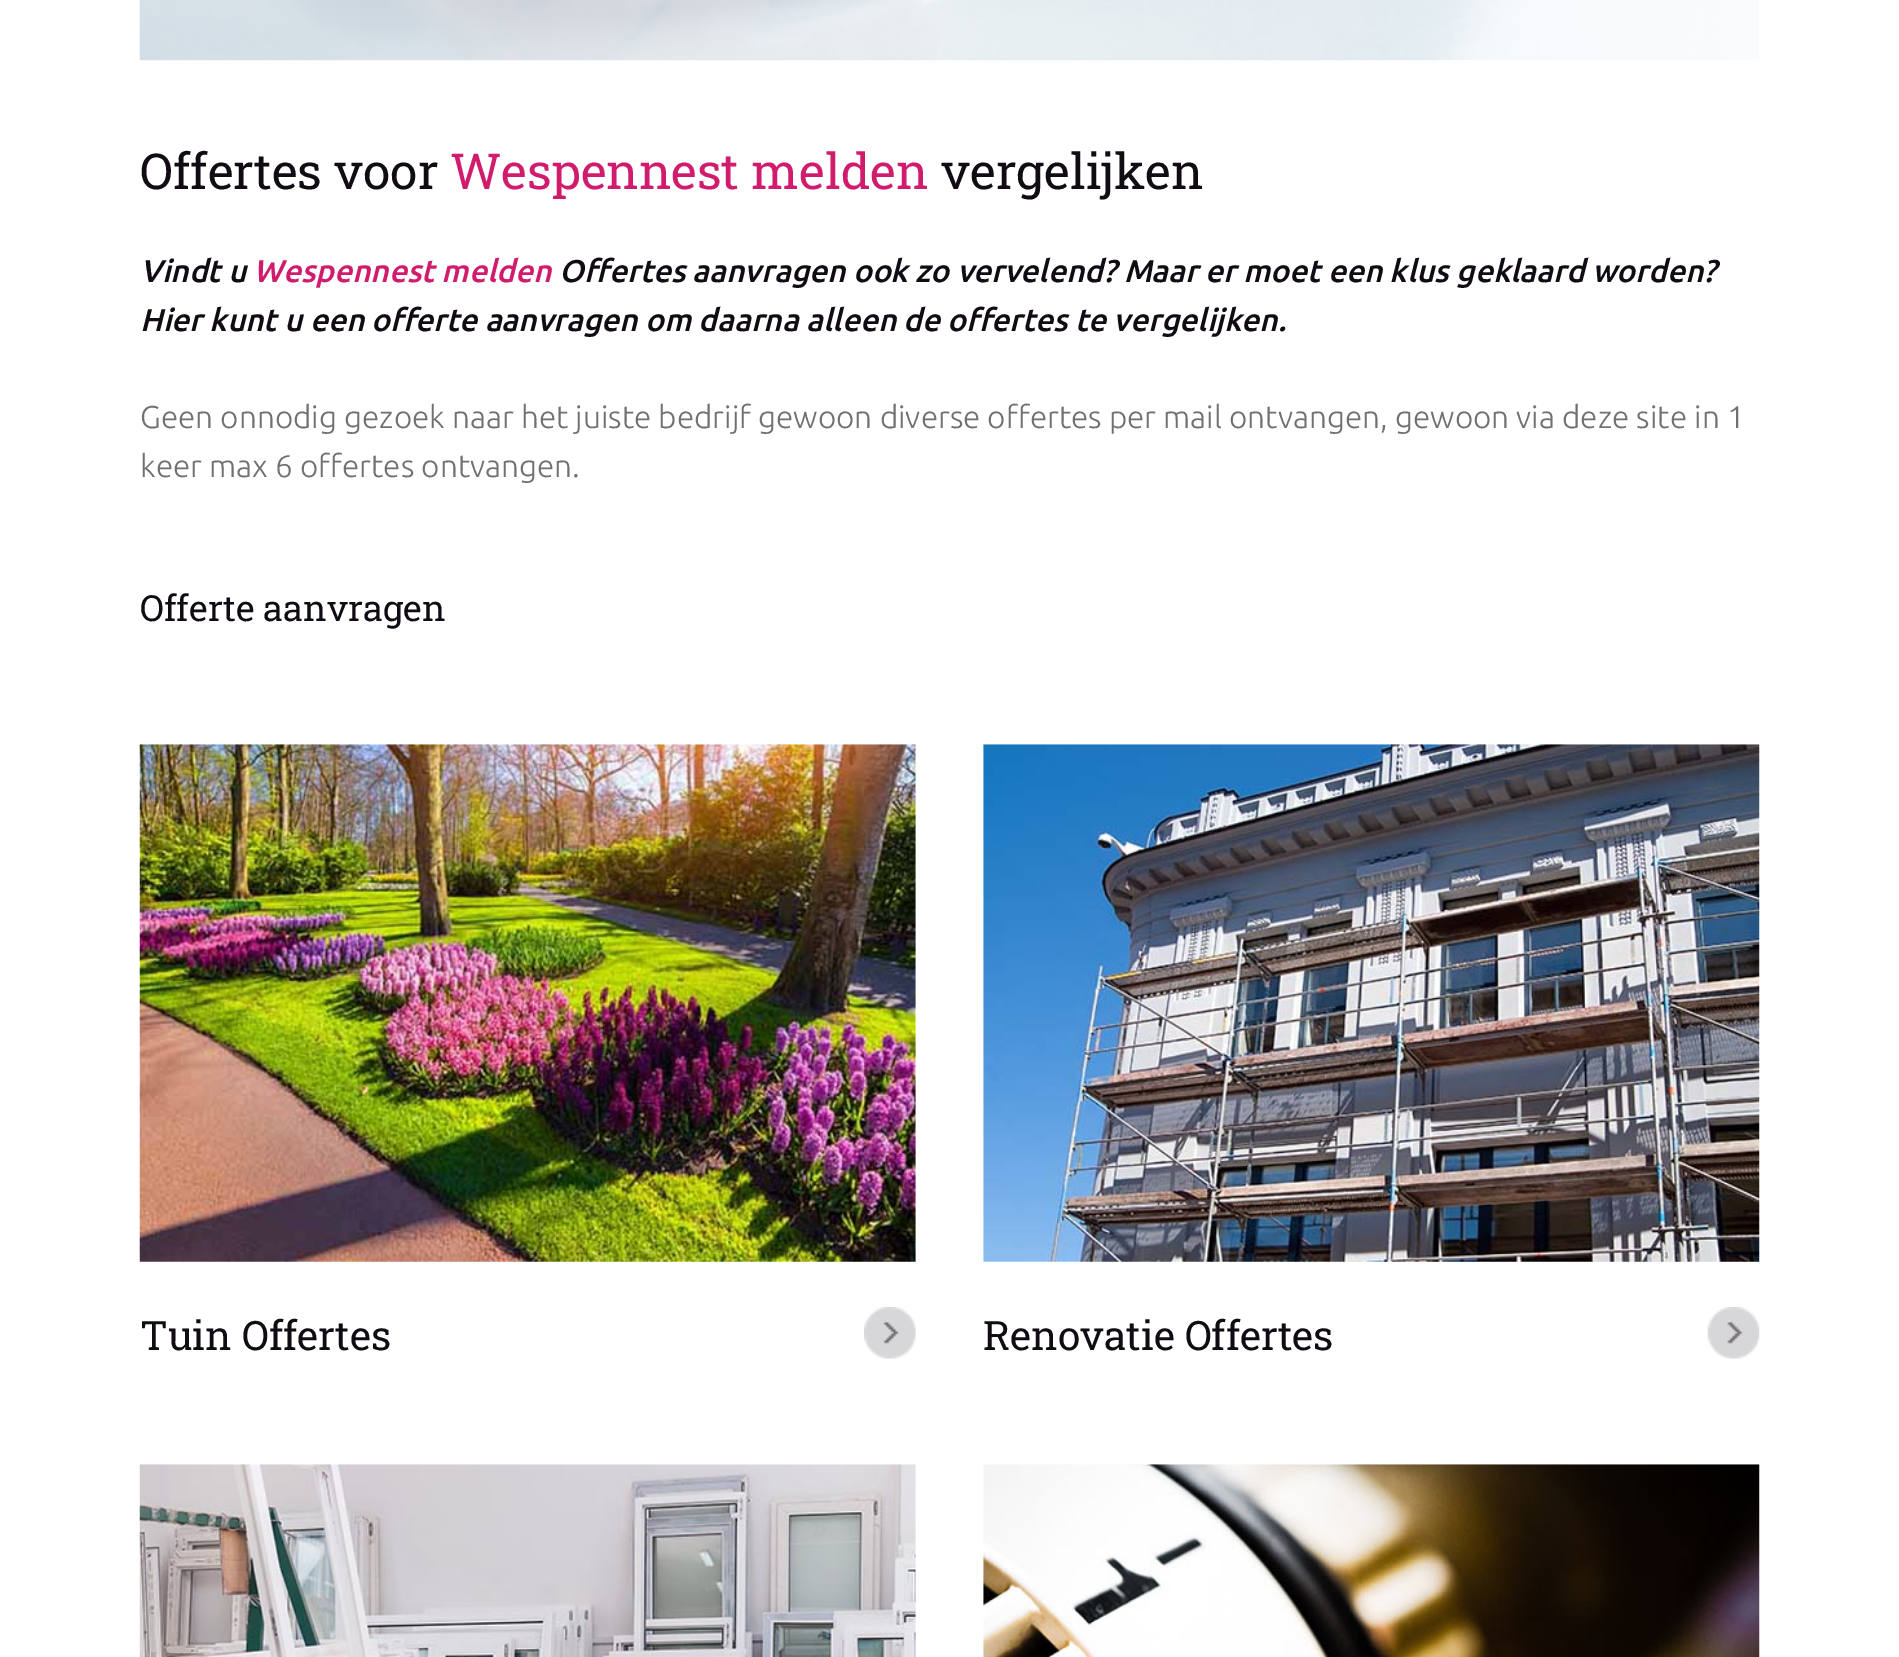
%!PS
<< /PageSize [1899 1657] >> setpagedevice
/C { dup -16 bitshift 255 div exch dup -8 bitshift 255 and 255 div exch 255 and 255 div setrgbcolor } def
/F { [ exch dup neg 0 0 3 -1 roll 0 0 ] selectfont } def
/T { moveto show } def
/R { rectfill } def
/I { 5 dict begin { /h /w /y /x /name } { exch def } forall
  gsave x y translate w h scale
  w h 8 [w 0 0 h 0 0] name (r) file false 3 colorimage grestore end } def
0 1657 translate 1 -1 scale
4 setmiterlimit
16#FFFFFF C
0 0 1899 1657 R
(1.rgb) 139 0 1620 61 I
/RobotoSlab-Regular 49.5 F
16#110C14 C
(Offertes voor) 140 189 T
16#D11C6E C
(Wespennest melden) 450 189 T
16#110C14 C
(vergelijken) 941 189 T
/Ubuntu-MediumItalic 31.5 F
(Vindt u) 140 282 T
16#D11C6E C
(Wespennest melden) 253 282 T
16#110C14 C
(Offertes aanvragen ook zo vervelend? Maar er moet een klus geklaard worden?) 559 282 T
(Hier kunt u een offerte aanvragen om daarna alleen de offertes te vergelijken.) 140 331 T
/Ubuntu-Light 31.5 F
16#726E74 C
(Geen onnodig gezoek naar het juiste bedrijf gewoon diverse offertes per mail ontvangen, gewoon via deze site in 1) 140 428 T
(keer max 6 offertes ontvangen.) 140 477 T
/RobotoSlab-Regular 36 F
16#110C14 C
(Offerte aanvragen) 140 621 T
(2.rgb) 139 744 777 518 I
/RobotoSlab-Regular 40.5 F
(Tuin Offertes) 140 1350 T
(3.rgb) 864 1307 52 52 I
(4.rgb) 139 1464 777 193 I
(5.rgb) 983 744 777 518 I
(Renovatie Offertes) 983 1350 T
(6.rgb) 1707 1307 53 52 I
(7.rgb) 983 1464 777 193 I
showpage
